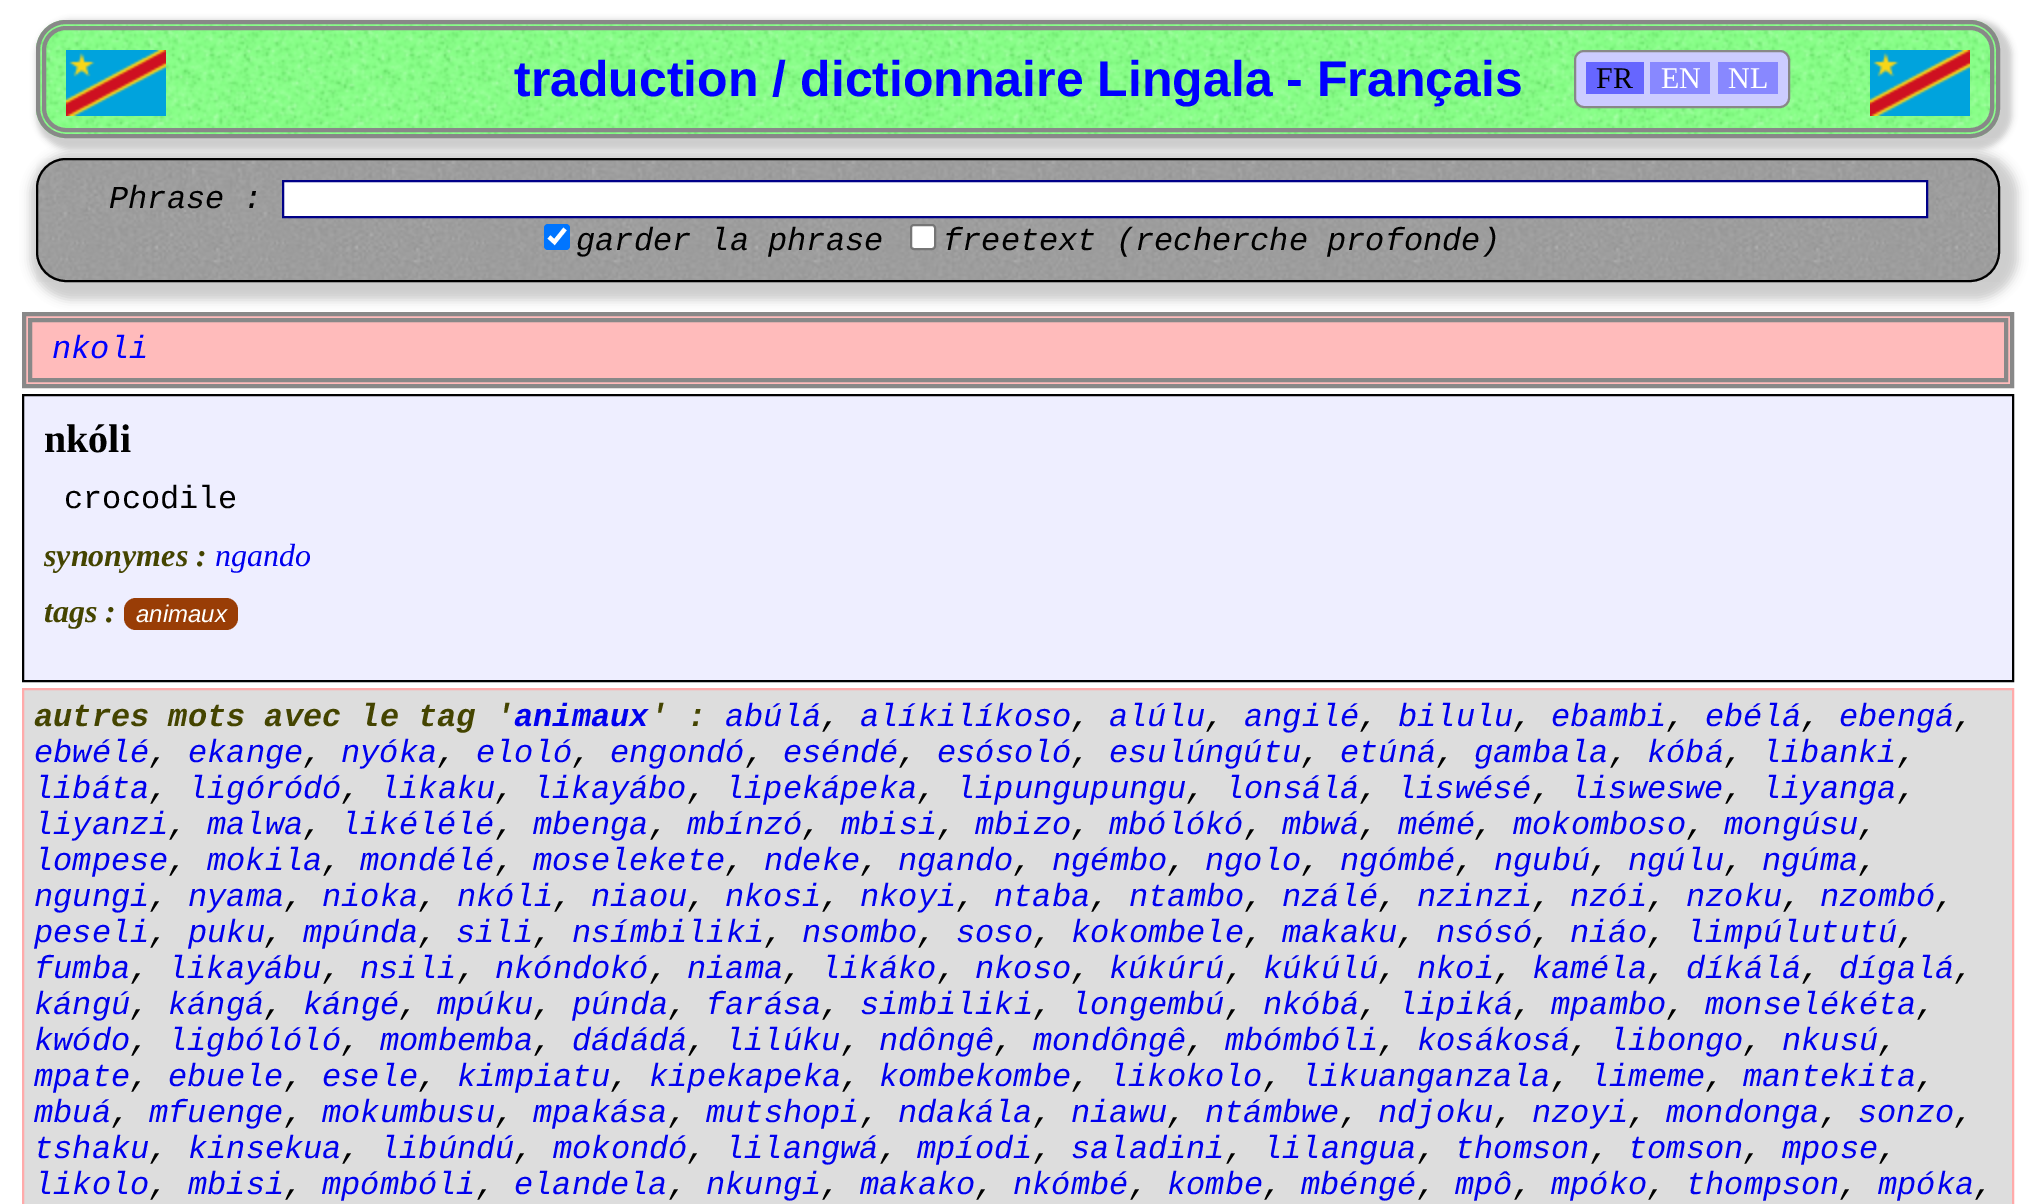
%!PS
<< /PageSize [2035 1204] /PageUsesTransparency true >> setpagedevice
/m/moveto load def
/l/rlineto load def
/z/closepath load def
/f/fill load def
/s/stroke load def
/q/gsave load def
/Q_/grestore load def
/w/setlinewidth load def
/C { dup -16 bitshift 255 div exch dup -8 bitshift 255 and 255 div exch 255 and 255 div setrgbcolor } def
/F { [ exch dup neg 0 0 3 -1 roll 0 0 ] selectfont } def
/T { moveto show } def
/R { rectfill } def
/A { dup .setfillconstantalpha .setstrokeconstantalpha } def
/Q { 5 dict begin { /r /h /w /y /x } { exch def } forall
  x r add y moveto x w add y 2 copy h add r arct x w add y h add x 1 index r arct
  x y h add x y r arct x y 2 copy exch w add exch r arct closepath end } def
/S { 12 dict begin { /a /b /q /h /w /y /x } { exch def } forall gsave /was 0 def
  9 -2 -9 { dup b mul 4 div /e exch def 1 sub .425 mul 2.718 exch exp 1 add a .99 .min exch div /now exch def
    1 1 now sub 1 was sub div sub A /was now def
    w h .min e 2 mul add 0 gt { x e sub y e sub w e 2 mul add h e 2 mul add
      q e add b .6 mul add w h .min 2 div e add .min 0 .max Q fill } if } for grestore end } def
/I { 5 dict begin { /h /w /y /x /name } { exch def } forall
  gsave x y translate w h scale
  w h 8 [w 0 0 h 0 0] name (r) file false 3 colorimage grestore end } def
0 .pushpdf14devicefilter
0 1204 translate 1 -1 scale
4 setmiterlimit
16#FFFFFF C
0 0 2035 1204 R
16#CCCCCC C
30 152 1988 148 42 5 1 S
(3.rgb) 36 158 1964 124 I
16#000000 C
2 w
37 159 1962 122 29 Q s
16#CCCCCC C
36 20 1976 130 36 3 1 S
(1.rgb) 36 20 1964 118 I
16#888888 C
4 w
38 22 1960 114 28 Q s
44 28 1948 102 22 Q s
(2.rgb) 66 50 100 66 I
/LiberationSans-Bold 50 F
16#0000FF C
(traduction / dictionnaire Lingala - Français) 514 96 T
16#CCCCFF C
1575 51 214 56 9 Q q f Q_
16#888888 C
2 w
s
16#6666FF C
1586 62 58 32 R
/LiberationSerif-Regular 30 F
16#000000 C
(FR) 1596 88 T
16#8888FF C
1650 62 60 32 R
16#FFFFFF C
(EN) 1661 88 T
16#8888FF C
1718 62 60 32 R
16#FFFFFF C
(NL) 1728 88 T
(2.rgb) 1870 50 100 66 I
/LiberationMono-Italic 32 F
16#000000 C
(Phrase :) 109 208 T
16#FFFFFF C
283 181 m 1644 0 l 0 36 l -1644 0 l z q f Q_
16#000088 C
s
16#0075FF C
544 224 26 26 4 Q f
16#FFFFFF C
4.2 w
549 237 m 5.5 5 l 10.5 -13 l s
16#000000 C
(garder la phrase) 576 250 T
16#FFFFFF C
911 225 24 24 3 Q q f Q_
16#767676 C
2 w
s
16#000000 C
(freetext \(recherche profonde\)) 943 250 T
16#FFBBBB C
24 314 m 1988 0 l 0 72 l -1988 0 l z q f Q_
16#888888 C
4 w
s
30 320 1976 60 rectstroke
16#0000FF C
(nkoli) 52 358 T
16#EEEEFF C
23 395 m 1990 0 l 0 286 l -1990 0 l z q f Q_
16#000000 C
2 w
s
/LiberationSerif-Bold 40 F
(nkóli) 44 452 T
/LiberationMono-Regular 32 F
(crocodile) 64 508 T
/LiberationSerif-BoldItalic 32 F
16#444400 C
(synonymes :) 44 566 T
/LiberationSerif-Italic 32 F
16#0000EE C
(ngando) 215 566 T
/LiberationSerif-BoldItalic 32 F
16#444400 C
(tags :) 44 622 T
16#993D06 C
124 598 114 32 12 Q f
/LiberationSans-Italic 24 F
16#FFFFFF C
(animaux) 136 622 T
16#DDDDDD C
23 689 m 1990 0 l 0 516 l -1990 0 l z q f Q_
16#FFAAAA C
s
/LiberationMono-BoldItalic 32 F
16#444400 C
(autres mots avec le tag ') 34 726 T
16#0000EE C
(animaux) 514 726 T
16#444400 C
(' :) 649 726 T
/LiberationMono-Italic 32 F
16#0000EE C
(abúlá) 725 726 T
16#000000 C
(,) 821 726 T
16#0000EE C
(alíkilíkoso) 860 726 T
16#000000 C
(,) 1071 726 T
16#0000EE C
(alúlu) 1109 726 T
16#000000 C
(,) 1205 726 T
16#0000EE C
(angilé) 1244 726 T
16#000000 C
(,) 1359 726 T
16#0000EE C
(bilulu) 1398 726 T
16#000000 C
(,) 1513 726 T
16#0000EE C
(ebambi) 1551 726 T
16#000000 C
(,) 1666 726 T
16#0000EE C
(ebélá) 1705 726 T
16#000000 C
(,) 1801 726 T
16#0000EE C
(ebengá) 1839 726 T
16#000000 C
(,) 1954 726 T
16#0000EE C
(ebwélé) 34 762 T
16#000000 C
(,) 149 762 T
16#0000EE C
(ekange) 188 762 T
16#000000 C
(,) 303 762 T
16#0000EE C
(nyóka) 341 762 T
16#000000 C
(,) 437 762 T
16#0000EE C
(eloló) 476 762 T
16#000000 C
(,) 572 762 T
16#0000EE C
(engondó) 610 762 T
16#000000 C
(,) 745 762 T
16#0000EE C
(eséndé) 783 762 T
16#000000 C
(,) 898 762 T
16#0000EE C
(esósoló) 937 762 T
16#000000 C
(,) 1071 762 T
16#0000EE C
(esulúngútu) 1109 762 T
16#000000 C
(,) 1301 762 T
16#0000EE C
(etúná) 1340 762 T
16#000000 C
(,) 1436 762 T
16#0000EE C
(gambala) 1474 762 T
16#000000 C
(,) 1609 762 T
16#0000EE C
(kóbá) 1647 762 T
16#000000 C
(,) 1724 762 T
16#0000EE C
(libanki) 1762 762 T
16#000000 C
(,) 1897 762 T
16#0000EE C
(libáta) 34 798 T
16#000000 C
(,) 149 798 T
16#0000EE C
(ligóródó) 188 798 T
16#000000 C
(,) 341 798 T
16#0000EE C
(likaku) 380 798 T
16#000000 C
(,) 495 798 T
16#0000EE C
(likayábo) 533 798 T
16#000000 C
(,) 687 798 T
16#0000EE C
(lipekápeka) 725 798 T
16#000000 C
(,) 917 798 T
16#0000EE C
(lipungupungu) 956 798 T
16#000000 C
(,) 1186 798 T
16#0000EE C
(lonsálá) 1225 798 T
16#000000 C
(,) 1359 798 T
16#0000EE C
(liswésé) 1397 798 T
16#000000 C
(,) 1532 798 T
16#0000EE C
(lisweswe) 1570 798 T
16#000000 C
(,) 1724 798 T
16#0000EE C
(liyanga) 1762 798 T
16#000000 C
(,) 1897 798 T
16#0000EE C
(liyanzi) 34 834 T
16#000000 C
(,) 168 834 T
16#0000EE C
(malwa) 207 834 T
16#000000 C
(,) 303 834 T
16#0000EE C
(likélélé) 341 834 T
16#000000 C
(,) 495 834 T
16#0000EE C
(mbenga) 533 834 T
16#000000 C
(,) 649 834 T
16#0000EE C
(mbínzó) 687 834 T
16#000000 C
(,) 802 834 T
16#0000EE C
(mbisi) 841 834 T
16#000000 C
(,) 937 834 T
16#0000EE C
(mbizo) 975 834 T
16#000000 C
(,) 1071 834 T
16#0000EE C
(mbólókó) 1109 834 T
16#000000 C
(,) 1244 834 T
16#0000EE C
(mbwá) 1282 834 T
16#000000 C
(,) 1359 834 T
16#0000EE C
(mémé) 1398 834 T
16#000000 C
(,) 1474 834 T
16#0000EE C
(mokomboso) 1513 834 T
16#000000 C
(,) 1686 834 T
16#0000EE C
(mongúsu) 1724 834 T
16#000000 C
(,) 1858 834 T
16#0000EE C
(lompese) 34 870 T
16#000000 C
(,) 168 870 T
16#0000EE C
(mokila) 207 870 T
16#000000 C
(,) 322 870 T
16#0000EE C
(mondélé) 360 870 T
16#000000 C
(,) 495 870 T
16#0000EE C
(moselekete) 533 870 T
16#000000 C
(,) 725 870 T
16#0000EE C
(ndeke) 764 870 T
16#000000 C
(,) 860 870 T
16#0000EE C
(ngando) 898 870 T
16#000000 C
(,) 1013 870 T
16#0000EE C
(ngémbo) 1052 870 T
16#000000 C
(,) 1167 870 T
16#0000EE C
(ngolo) 1205 870 T
16#000000 C
(,) 1301 870 T
16#0000EE C
(ngómbé) 1340 870 T
16#000000 C
(,) 1455 870 T
16#0000EE C
(ngubú) 1494 870 T
16#000000 C
(,) 1590 870 T
16#0000EE C
(ngúlu) 1628 870 T
16#000000 C
(,) 1724 870 T
16#0000EE C
(ngúma) 1762 870 T
16#000000 C
(,) 1858 870 T
16#0000EE C
(ngungi) 34 906 T
16#000000 C
(,) 149 906 T
16#0000EE C
(nyama) 188 906 T
16#000000 C
(,) 284 906 T
16#0000EE C
(nioka) 322 906 T
16#000000 C
(,) 418 906 T
16#0000EE C
(nkóli) 457 906 T
16#000000 C
(,) 553 906 T
16#0000EE C
(niaou) 591 906 T
16#000000 C
(,) 687 906 T
16#0000EE C
(nkosi) 725 906 T
16#000000 C
(,) 821 906 T
16#0000EE C
(nkoyi) 860 906 T
16#000000 C
(,) 956 906 T
16#0000EE C
(ntaba) 994 906 T
16#000000 C
(,) 1090 906 T
16#0000EE C
(ntambo) 1129 906 T
16#000000 C
(,) 1244 906 T
16#0000EE C
(nzálé) 1282 906 T
16#000000 C
(,) 1378 906 T
16#0000EE C
(nzinzi) 1417 906 T
16#000000 C
(,) 1532 906 T
16#0000EE C
(nzói) 1570 906 T
16#000000 C
(,) 1647 906 T
16#0000EE C
(nzoku) 1686 906 T
16#000000 C
(,) 1782 906 T
16#0000EE C
(nzombó) 1820 906 T
16#000000 C
(,) 1935 906 T
16#0000EE C
(peseli) 34 942 T
16#000000 C
(,) 149 942 T
16#0000EE C
(puku) 188 942 T
16#000000 C
(,) 264 942 T
16#0000EE C
(mpúnda) 303 942 T
16#000000 C
(,) 418 942 T
16#0000EE C
(sili) 456 942 T
16#000000 C
(,) 533 942 T
16#0000EE C
(nsímbiliki) 572 942 T
16#000000 C
(,) 764 942 T
16#0000EE C
(nsombo) 802 942 T
16#000000 C
(,) 917 942 T
16#0000EE C
(soso) 956 942 T
16#000000 C
(,) 1033 942 T
16#0000EE C
(kokombele) 1071 942 T
16#000000 C
(,) 1244 942 T
16#0000EE C
(makaku) 1282 942 T
16#000000 C
(,) 1397 942 T
16#0000EE C
(nsósó) 1436 942 T
16#000000 C
(,) 1532 942 T
16#0000EE C
(niáo) 1570 942 T
16#000000 C
(,) 1647 942 T
16#0000EE C
(limpúlututú) 1686 942 T
16#000000 C
(,) 1897 942 T
16#0000EE C
(fumba) 34 978 T
16#000000 C
(,) 130 978 T
16#0000EE C
(likayábu) 168 978 T
16#000000 C
(,) 322 978 T
16#0000EE C
(nsili) 360 978 T
16#000000 C
(,) 457 978 T
16#0000EE C
(nkóndokó) 495 978 T
16#000000 C
(,) 649 978 T
16#0000EE C
(niama) 687 978 T
16#000000 C
(,) 783 978 T
16#0000EE C
(likáko) 821 978 T
16#000000 C
(,) 937 978 T
16#0000EE C
(nkoso) 975 978 T
16#000000 C
(,) 1071 978 T
16#0000EE C
(kúkúrú) 1109 978 T
16#000000 C
(,) 1225 978 T
16#0000EE C
(kúkúlú) 1263 978 T
16#000000 C
(,) 1378 978 T
16#0000EE C
(nkoi) 1417 978 T
16#000000 C
(,) 1494 978 T
16#0000EE C
(kaméla) 1532 978 T
16#000000 C
(,) 1647 978 T
16#0000EE C
(díkálá) 1686 978 T
16#000000 C
(,) 1801 978 T
16#0000EE C
(dígalá) 1839 978 T
16#000000 C
(,) 1954 978 T
16#0000EE C
(kángú) 34 1014 T
16#000000 C
(,) 130 1014 T
16#0000EE C
(kángá) 168 1014 T
16#000000 C
(,) 264 1014 T
16#0000EE C
(kángé) 303 1014 T
16#000000 C
(,) 399 1014 T
16#0000EE C
(mpúku) 437 1014 T
16#000000 C
(,) 533 1014 T
16#0000EE C
(púnda) 572 1014 T
16#000000 C
(,) 668 1014 T
16#0000EE C
(farása) 706 1014 T
16#000000 C
(,) 821 1014 T
16#0000EE C
(simbiliki) 860 1014 T
16#000000 C
(,) 1033 1014 T
16#0000EE C
(longembú) 1071 1014 T
16#000000 C
(,) 1225 1014 T
16#0000EE C
(nkóbá) 1263 1014 T
16#000000 C
(,) 1359 1014 T
16#0000EE C
(lipiká) 1398 1014 T
16#000000 C
(,) 1513 1014 T
16#0000EE C
(mpambo) 1551 1014 T
16#000000 C
(,) 1666 1014 T
16#0000EE C
(monselékéta) 1705 1014 T
16#000000 C
(,) 1916 1014 T
16#0000EE C
(kwódo) 34 1050 T
16#000000 C
(,) 130 1050 T
16#0000EE C
(ligbólóló) 168 1050 T
16#000000 C
(,) 341 1050 T
16#0000EE C
(mombemba) 380 1050 T
16#000000 C
(,) 533 1050 T
16#0000EE C
(dádádá) 572 1050 T
16#000000 C
(,) 687 1050 T
16#0000EE C
(lilúku) 725 1050 T
16#000000 C
(,) 841 1050 T
16#0000EE C
(ndôngê) 879 1050 T
16#000000 C
(,) 994 1050 T
16#0000EE C
(mondôngê) 1033 1050 T
16#000000 C
(,) 1186 1050 T
16#0000EE C
(mbómbóli) 1225 1050 T
16#000000 C
(,) 1378 1050 T
16#0000EE C
(kosákosá) 1417 1050 T
16#000000 C
(,) 1570 1050 T
16#0000EE C
(libongo) 1609 1050 T
16#000000 C
(,) 1743 1050 T
16#0000EE C
(nkusú) 1782 1050 T
16#000000 C
(,) 1878 1050 T
16#0000EE C
(mpate) 34 1086 T
16#000000 C
(,) 130 1086 T
16#0000EE C
(ebuele) 168 1086 T
16#000000 C
(,) 284 1086 T
16#0000EE C
(esele) 322 1086 T
16#000000 C
(,) 418 1086 T
16#0000EE C
(kimpiatu) 457 1086 T
16#000000 C
(,) 610 1086 T
16#0000EE C
(kipekapeka) 649 1086 T
16#000000 C
(,) 841 1086 T
16#0000EE C
(kombekombe) 879 1086 T
16#000000 C
(,) 1071 1086 T
16#0000EE C
(likokolo) 1109 1086 T
16#000000 C
(,) 1263 1086 T
16#0000EE C
(likuanganzala) 1301 1086 T
16#000000 C
(,) 1551 1086 T
16#0000EE C
(limeme) 1590 1086 T
16#000000 C
(,) 1705 1086 T
16#0000EE C
(mantekita) 1743 1086 T
16#000000 C
(,) 1916 1086 T
16#0000EE C
(mbuá) 34 1122 T
16#000000 C
(,) 111 1122 T
16#0000EE C
(mfuenge) 149 1122 T
16#000000 C
(,) 284 1122 T
16#0000EE C
(mokumbusu) 322 1122 T
16#000000 C
(,) 495 1122 T
16#0000EE C
(mpakása) 533 1122 T
16#000000 C
(,) 668 1122 T
16#0000EE C
(mutshopi) 706 1122 T
16#000000 C
(,) 860 1122 T
16#0000EE C
(ndakála) 898 1122 T
16#000000 C
(,) 1033 1122 T
16#0000EE C
(niawu) 1071 1122 T
16#000000 C
(,) 1167 1122 T
16#0000EE C
(ntámbwe) 1205 1122 T
16#000000 C
(,) 1340 1122 T
16#0000EE C
(ndjoku) 1378 1122 T
16#000000 C
(,) 1494 1122 T
16#0000EE C
(nzoyi) 1532 1122 T
16#000000 C
(,) 1628 1122 T
16#0000EE C
(mondonga) 1666 1122 T
16#000000 C
(,) 1820 1122 T
16#0000EE C
(sonzo) 1858 1122 T
16#000000 C
(,) 1954 1122 T
16#0000EE C
(tshaku) 34 1158 T
16#000000 C
(,) 149 1158 T
16#0000EE C
(kinsekua) 188 1158 T
16#000000 C
(,) 341 1158 T
16#0000EE C
(libúndú) 380 1158 T
16#000000 C
(,) 514 1158 T
16#0000EE C
(mokondó) 553 1158 T
16#000000 C
(,) 687 1158 T
16#0000EE C
(lilangwá) 725 1158 T
16#000000 C
(,) 879 1158 T
16#0000EE C
(mpíodi) 917 1158 T
16#000000 C
(,) 1033 1158 T
16#0000EE C
(saladini) 1071 1158 T
16#000000 C
(,) 1225 1158 T
16#0000EE C
(lilangua) 1263 1158 T
16#000000 C
(,) 1417 1158 T
16#0000EE C
(thomson) 1455 1158 T
16#000000 C
(,) 1590 1158 T
16#0000EE C
(tomson) 1628 1158 T
16#000000 C
(,) 1743 1158 T
16#0000EE C
(mpose) 1782 1158 T
16#000000 C
(,) 1878 1158 T
16#0000EE C
(likolo) 34 1194 T
16#000000 C
(,) 149 1194 T
16#0000EE C
(mbisi) 188 1194 T
16#000000 C
(,) 284 1194 T
16#0000EE C
(mpómbóli) 322 1194 T
16#000000 C
(,) 476 1194 T
16#0000EE C
(elandela) 514 1194 T
16#000000 C
(,) 668 1194 T
16#0000EE C
(nkungi) 706 1194 T
16#000000 C
(,) 821 1194 T
16#0000EE C
(makako) 860 1194 T
16#000000 C
(,) 975 1194 T
16#0000EE C
(nkómbé) 1013 1194 T
16#000000 C
(,) 1129 1194 T
16#0000EE C
(kombe) 1167 1194 T
16#000000 C
(,) 1263 1194 T
16#0000EE C
(mbéngé) 1301 1194 T
16#000000 C
(,) 1417 1194 T
16#0000EE C
(mpô) 1455 1194 T
16#000000 C
(,) 1513 1194 T
16#0000EE C
(mpóko) 1551 1194 T
16#000000 C
(,) 1647 1194 T
16#0000EE C
(thompson) 1686 1194 T
16#000000 C
(,) 1839 1194 T
16#0000EE C
(mpóka) 1878 1194 T
16#000000 C
(,) 1974 1194 T
.poppdf14devicefilter showpage
